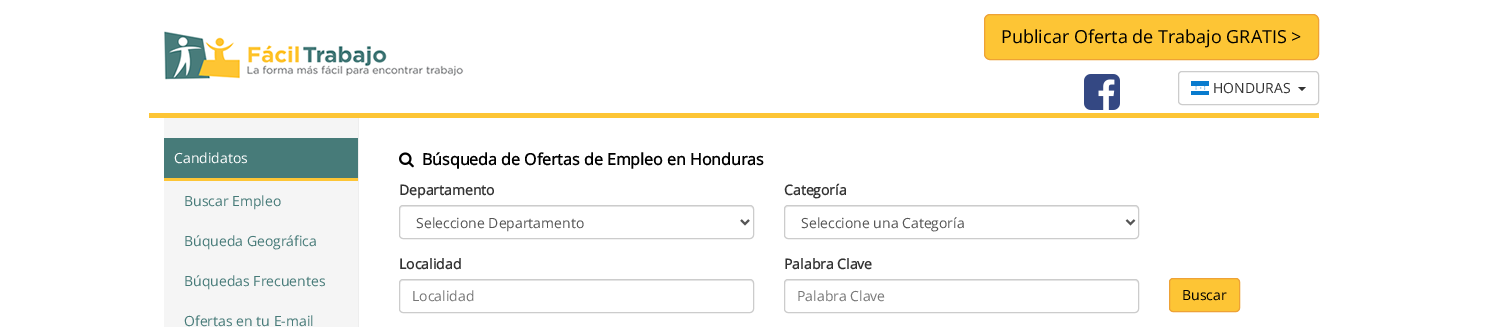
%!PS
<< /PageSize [1497 327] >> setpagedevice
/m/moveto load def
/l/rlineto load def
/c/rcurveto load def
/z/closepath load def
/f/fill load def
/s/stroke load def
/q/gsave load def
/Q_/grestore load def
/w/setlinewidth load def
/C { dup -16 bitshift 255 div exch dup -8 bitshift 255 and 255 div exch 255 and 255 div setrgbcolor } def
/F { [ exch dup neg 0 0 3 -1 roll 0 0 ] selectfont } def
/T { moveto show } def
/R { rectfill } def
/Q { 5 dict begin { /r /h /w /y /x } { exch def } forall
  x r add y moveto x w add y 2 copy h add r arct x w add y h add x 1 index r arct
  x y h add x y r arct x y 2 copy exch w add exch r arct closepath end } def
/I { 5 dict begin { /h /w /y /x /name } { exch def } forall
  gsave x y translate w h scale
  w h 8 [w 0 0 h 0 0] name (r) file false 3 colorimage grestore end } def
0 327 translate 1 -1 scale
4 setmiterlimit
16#FFFFFF C
0 0 1497 327 R
(1.rgb) 164 31 300 49 I
16#FDC535 C
984.5 14.5 334 45 5.5 Q q f Q_
16#EEA236 C
s
/OpenSans-Regular 18 F
16#000000 C
(Publicar Oferta de Trabajo GRATIS >) 1001 43 T
(2.rgb) 1084 74 36 36 I
16#CCCCCC C
1178.5 71.5 140 33 3.5 Q s
(3.rgb) 1191 81 18 14 I
/OpenSans-Regular 14 F
16#333333 C
(HONDURAS) 1213 93 T
1298 87 m 8 0 l -4 4 l z f
16#FDC535 C
149 113 1170 5 R
16#F5F5F5 C
164 118 194 209 R
16#EEEEEE C
358 118 1 209 R
16#477B79 C
164 138 194 40 R
16#FDC535 C
164 178 194 3 R
16#FFFFFF C
(Candidatos) 174 163 T
16#477B79 C
(Buscar Empleo) 184 206 T
(Búqueda Geográfica) 184 246 T
(Búquedas Frecuentes) 184 286 T
(Ofertas en tu E-mail) 184 326 T
(4.rgb) 399 152 15 16 I
/OpenSans-Bold 16 F
16#000000 C
(Búsqueda de Ofertas de Empleo en Honduras) 422 165 T
/OpenSans-Bold 14 F
16#333333 C
(Departamento) 399 195 T
16#ECECEC C
403 207 m 347 0 l 2 0 3 1 3 3 c 0 -2 -1 -4 -3 -4 c -347 0 l -2 1 l -1 3 l 0 -2 1 -3 3 -3 c z f
16#CCCCCC C
399.5 205.5 354 33 3.5 Q s
16#555555 C
2 w
741 220 m 4 4 l 4 -4 l s
/OpenSans-Regular 14 F
(Seleccione Departamento) 416 228 T
/OpenSans-Bold 14 F
16#333333 C
(Categoría) 784 195 T
16#ECECEC C
788 207 m 347 0 l 2 0 3 1 3 3 c 0 -2 -1 -4 -3 -4 c -347 0 l -2 1 l -1 3 l 0 -2 1 -3 3 -3 c z f
16#CCCCCC C
1 w
784.5 205.5 354 33 3.5 Q s
16#555555 C
2 w
1126.5 220 m 4 4 l 4 -4 l s
/OpenSans-Regular 14 F
(Seleccione una Categoría) 801 228 T
/OpenSans-Bold 14 F
16#333333 C
(Localidad) 399 269 T
16#ECECEC C
403 281 m 347 0 l 2 0 3 1 3 3 c 0 -2 -1 -4 -3 -4 c -347 0 l -2 1 l -1 3 l 0 -2 1 -3 3 -3 c z f
16#CCCCCC C
1 w
399.5 279.5 354 33 3.5 Q s
/OpenSans-Regular 14 F
16#777777 C
(Localidad) 412 301 T
/OpenSans-Bold 14 F
16#333333 C
(Palabra Clave) 784 269 T
16#ECECEC C
788 281 m 347 0 l 2 0 3 1 3 3 c 0 -2 -1 -4 -3 -4 c -347 0 l -2 1 l -1 3 l 0 -2 1 -3 3 -3 c z f
16#CCCCCC C
784.5 279.5 354 33 3.5 Q s
/OpenSans-Regular 14 F
16#777777 C
(Palabra Clave) 797 301 T
16#FDC535 C
1169.5 278.5 70 33 3.5 Q q f Q_
16#EEA236 C
s
16#000000 C
(Buscar) 1182 300 T
showpage
